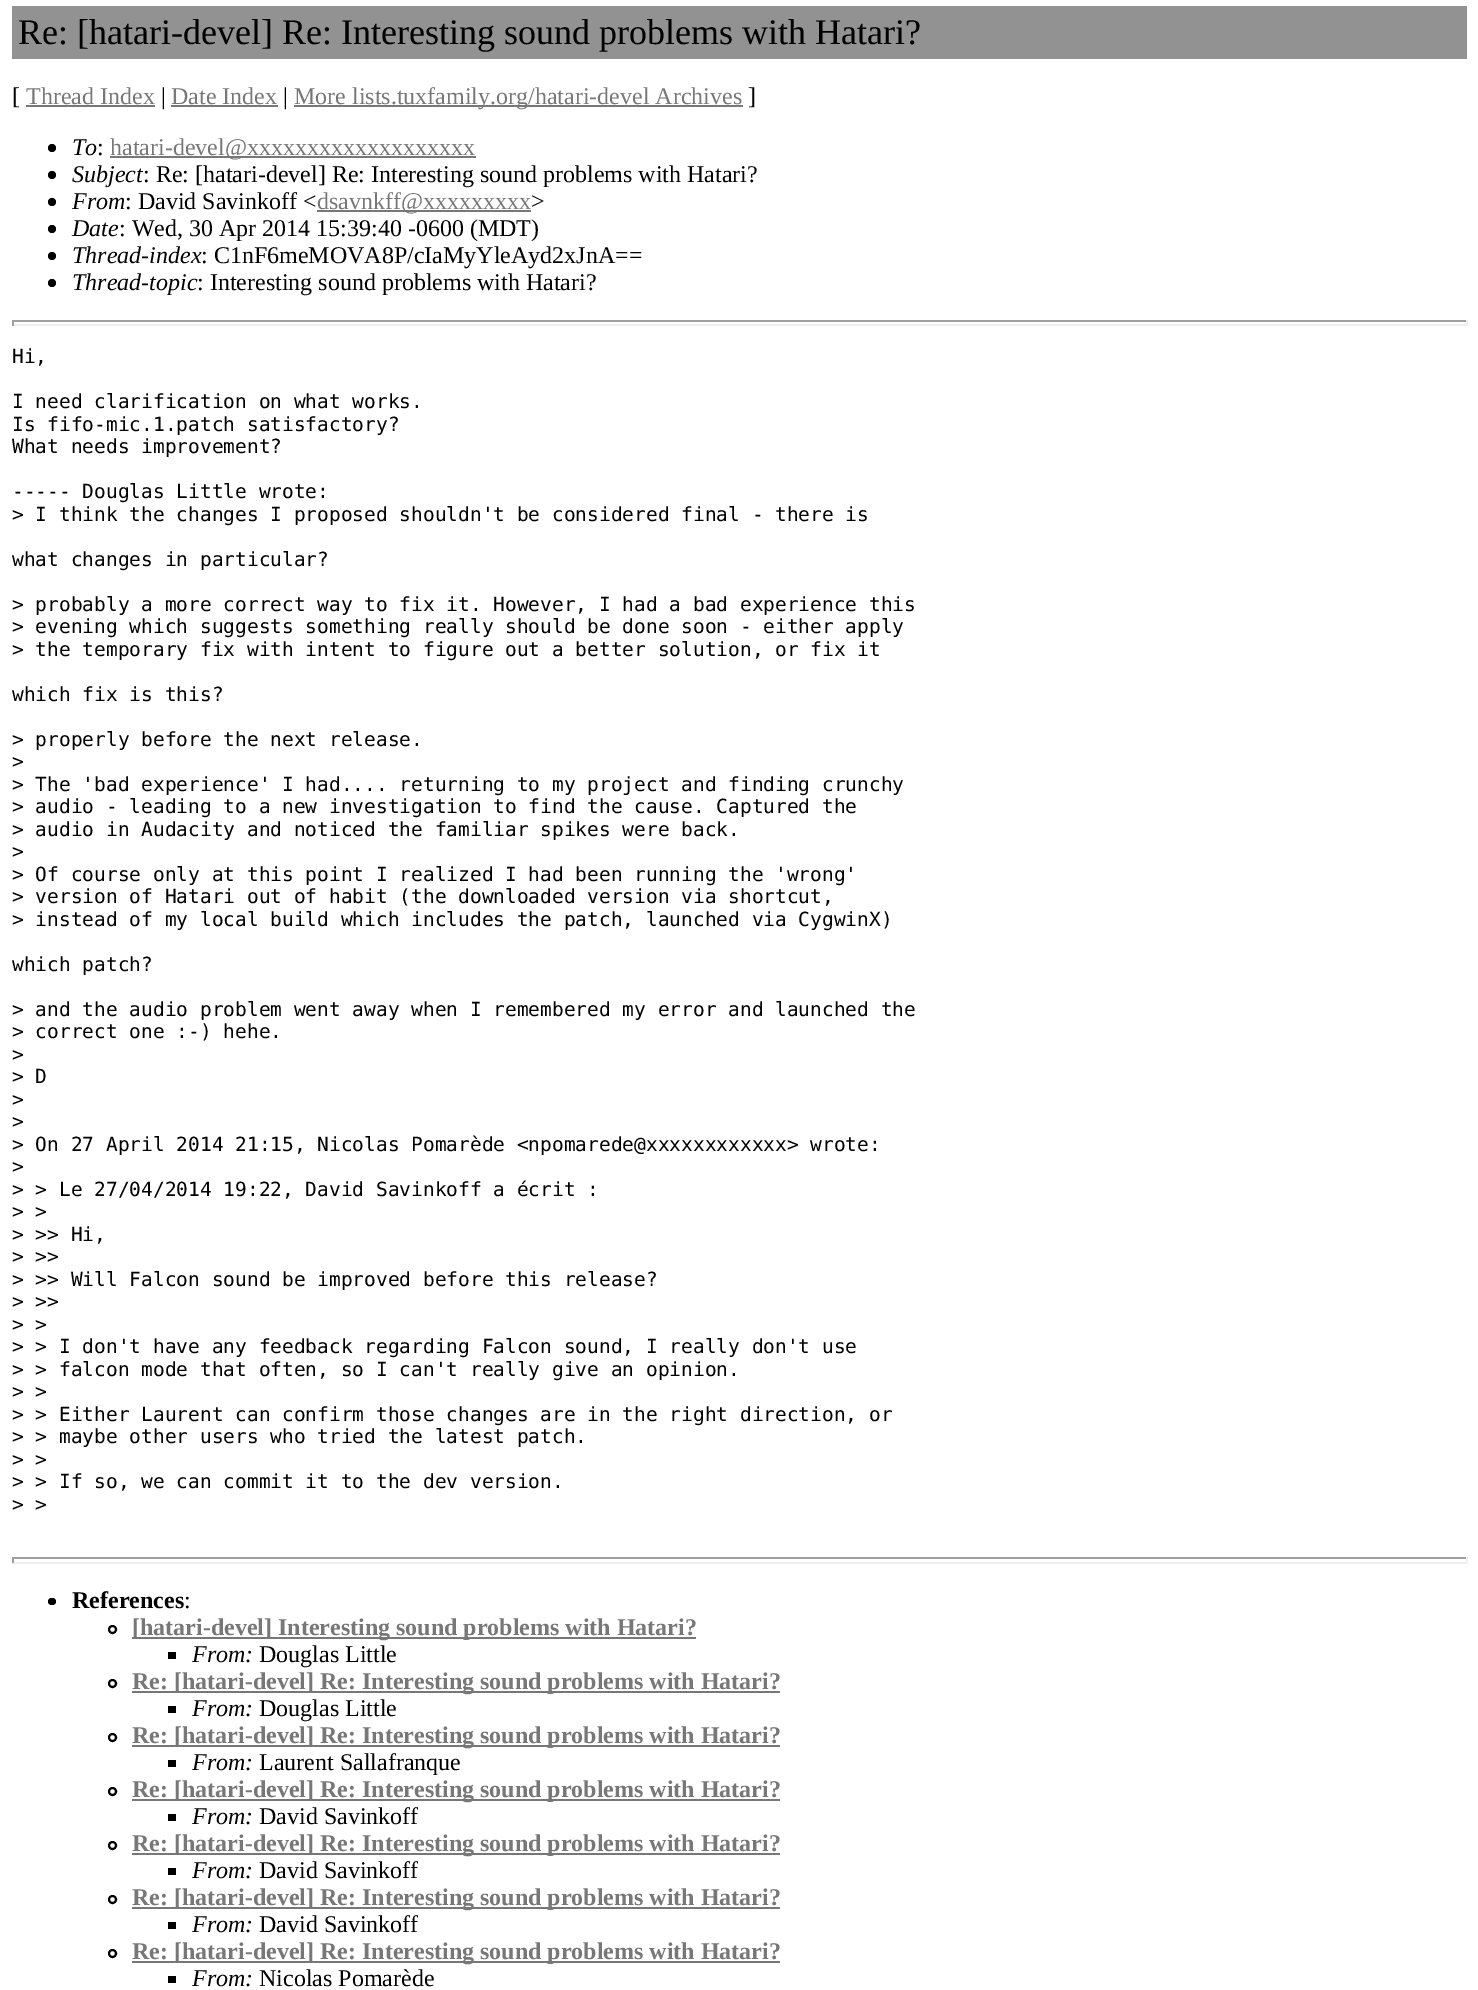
%!PS
<< /PageSize [1478 1990] >> setpagedevice
/f/fill load def
/s/stroke load def
/w/setlinewidth load def
/C { dup -16 bitshift 255 div exch dup -8 bitshift 255 and 255 div exch 255 and 255 div setrgbcolor } def
/F { [ exch dup neg 0 0 3 -1 roll 0 0 ] selectfont } def
/T { moveto show } def
/R { rectfill } def
/O { newpath 0 360 arc closepath } def
/Q { 5 dict begin { /r /h /w /y /x } { exch def } forall
  x r add y moveto x w add y 2 copy h add r arct x w add y h add x 1 index r arct
  x y h add x y r arct x y 2 copy exch w add exch r arct closepath end } def
0 1990 translate 1 -1 scale
4 setmiterlimit
16#FFFFFF C
0 0 1478 1990 R
16#929292 C
12 6 1455 53 R
/LiberationSerif-Regular 36 F
16#000000 C
(Re: [hatari-devel] Re: Interesting sound problems with Hatari?) 18 44 T
/LiberationSerif-Regular 24 F
([) 12 104 T
16#777777 C
(Thread Index) 26 104 T
26 105 129 2 R
16#000000 C
(|) 161 104 T
16#777777 C
(Date Index) 171 104 T
171 105 107 2 R
16#000000 C
(|) 283 104 T
16#777777 C
294 105 449 2 R
(More lists.tuxfamily.org/hatari-devel Archives) 294 104 T
16#000000 C
(]) 748 104 T
52 148 4 O f
/LiberationSerif-Italic 24 F
(To) 72 155 T
/LiberationSerif-Regular 24 F
(:) 97 155 T
16#777777 C
110 156 366 2 R
(hatari-devel@xxxxxxxxxxxxxxxxxxx) 110 155 T
16#000000 C
52 175 4 O f
/LiberationSerif-Italic 24 F
(Subject) 72 182 T
/LiberationSerif-Regular 24 F
(: Re: [hatari-devel] Re: Interesting sound problems with Hatari?) 143 182 T
52 202 4 O f
/LiberationSerif-Italic 24 F
(From) 72 209 T
/LiberationSerif-Regular 24 F
(: David Savinkoff <) 125 209 T
16#777777 C
317 210 214 2 R
(dsavnkff@xxxxxxxxx) 317 209 T
16#000000 C
(>) 531 209 T
52 229 4 O f
/LiberationSerif-Italic 24 F
(Date) 72 236 T
/LiberationSerif-Regular 24 F
(: Wed, 30 Apr 2014 15:39:40 -0600 \(MDT\)) 119 236 T
52 256 4 O f
/LiberationSerif-Italic 24 F
(Thread-index) 72 263 T
/LiberationSerif-Regular 24 F
(: C1nF6meMOVA8P/cIaMyYleAyd2xJnA==) 201 263 T
52 283 4 O f
/LiberationSerif-Italic 24 F
(Thread-topic) 72 290 T
/LiberationSerif-Regular 24 F
(: Interesting sound problems with Hatari?) 197 290 T
16#9F9F9F C
12 320 1455 2 R
16#EEEEEE C
1466 320 2 6 R
12 324 1455 2 R
16#9F9F9F C
12 320 2 6 R
/DejaVuSansMono-Regular 19.5 F
16#000000 C
(Hi,) 12 363 T
(I need clarification on what works.) 12 408 T
(Is fifo-mic.1.patch satisfactory?) 12 431 T
(What needs improvement?) 12 453 T
(----- Douglas Little wrote:) 12 498 T
(> I think the changes I proposed shouldn't be considered final - there is) 12 521 T
(what changes in particular?) 12 566 T
(> probably a more correct way to fix it. However, I had a bad experience this) 12 611 T
(> evening which suggests something really should be done soon - either apply) 12 633 T
(> the temporary fix with intent to figure out a better solution, or fix it) 12 656 T
(which fix is this?) 12 701 T
(> properly before the next release.) 12 746 T
(>) 12 768 T
(> The 'bad experience' I had.... returning to my project and finding crunchy) 12 791 T
(> audio - leading to a new investigation to find the cause. Captured the) 12 813 T
(> audio in Audacity and noticed the familiar spikes were back.) 12 836 T
(>) 12 858 T
(> Of course only at this point I realized I had been running the 'wrong') 12 881 T
(> version of Hatari out of habit \(the downloaded version via shortcut,) 12 903 T
(> instead of my local build which includes the patch, launched via CygwinX\)) 12 926 T
(which patch?) 12 971 T
(> and the audio problem went away when I remembered my error and launched the) 12 1016 T
(> correct one :-\) hehe.) 12 1038 T
(>) 12 1061 T
(> D) 12 1083 T
(>) 12 1106 T
(>) 12 1128 T
(> On 27 April 2014 21:15, Nicolas Pomarède <npomarede@xxxxxxxxxxxx> wrote:) 12 1151 T
(>) 12 1173 T
(> > Le 27/04/2014 19:22, David Savinkoff a écrit :) 12 1196 T
(> >) 12 1218 T
(> >> Hi,) 12 1241 T
(> >>) 12 1263 T
(> >> Will Falcon sound be improved before this release?) 12 1286 T
(> >>) 12 1308 T
(> >) 12 1331 T
(> > I don't have any feedback regarding Falcon sound, I really don't use) 12 1353 T
(> > falcon mode that often, so I can't really give an opinion.) 12 1376 T
(> >) 12 1398 T
(> > Either Laurent can confirm those changes are in the right direction, or) 12 1421 T
(> > maybe other users who tried the latest patch.) 12 1443 T
(> >) 12 1466 T
(> > If so, we can commit it to the dev version.) 12 1488 T
(> >) 12 1511 T
16#9F9F9F C
12 1557 1455 2 R
16#EEEEEE C
1466 1557 2 6 R
12 1562 1455 2 R
16#9F9F9F C
12 1557 2 6 R
16#000000 C
48 1598 8 7 3.5 Q f
/LiberationSerif-Bold 24 F
(References) 72 1608 T
/LiberationSerif-Regular 24 F
(:) 184 1608 T
2 w
112.5 1629.5 3.5 O s
16#777777 C
132 1637 564 2 R
/LiberationSerif-Bold 24 F
([hatari-devel] Interesting sound problems with Hatari?) 132 1635 T
16#000000 C
168 1652 8 7 R
/LiberationSerif-Italic 24 F
(From:) 192 1662 T
/LiberationSerif-Regular 24 F
(Douglas Little) 259 1662 T
112.5 1683.5 3.5 O s
16#777777 C
132 1691 648 2 R
/LiberationSerif-Bold 24 F
(Re: [hatari-devel] Re: Interesting sound problems with Hatari?) 132 1689 T
16#000000 C
168 1706 8 7 R
/LiberationSerif-Italic 24 F
(From:) 192 1716 T
/LiberationSerif-Regular 24 F
(Douglas Little) 259 1716 T
112.5 1737.5 3.5 O s
16#777777 C
132 1745 648 2 R
/LiberationSerif-Bold 24 F
(Re: [hatari-devel] Re: Interesting sound problems with Hatari?) 132 1743 T
16#000000 C
168 1760 8 7 R
/LiberationSerif-Italic 24 F
(From:) 192 1770 T
/LiberationSerif-Regular 24 F
(Laurent Sallafranque) 259 1770 T
112.5 1791.5 3.5 O s
16#777777 C
132 1799 648 2 R
/LiberationSerif-Bold 24 F
(Re: [hatari-devel] Re: Interesting sound problems with Hatari?) 132 1797 T
16#000000 C
168 1814 8 7 R
/LiberationSerif-Italic 24 F
(From:) 192 1824 T
/LiberationSerif-Regular 24 F
(David Savinkoff) 259 1824 T
112.5 1845.5 3.5 O s
16#777777 C
132 1853 648 2 R
/LiberationSerif-Bold 24 F
(Re: [hatari-devel] Re: Interesting sound problems with Hatari?) 132 1851 T
16#000000 C
168 1868 8 7 R
/LiberationSerif-Italic 24 F
(From:) 192 1878 T
/LiberationSerif-Regular 24 F
(David Savinkoff) 259 1878 T
112.5 1899.5 3.5 O s
16#777777 C
132 1907 648 2 R
/LiberationSerif-Bold 24 F
(Re: [hatari-devel] Re: Interesting sound problems with Hatari?) 132 1905 T
16#000000 C
168 1922 8 7 R
/LiberationSerif-Italic 24 F
(From:) 192 1932 T
/LiberationSerif-Regular 24 F
(David Savinkoff) 259 1932 T
112.5 1953.5 3.5 O s
16#777777 C
132 1961 648 2 R
/LiberationSerif-Bold 24 F
(Re: [hatari-devel] Re: Interesting sound problems with Hatari?) 132 1959 T
16#000000 C
168 1976 8 7 R
/LiberationSerif-Italic 24 F
(From:) 192 1986 T
/LiberationSerif-Regular 24 F
(Nicolas Pomarède) 259 1986 T
showpage
